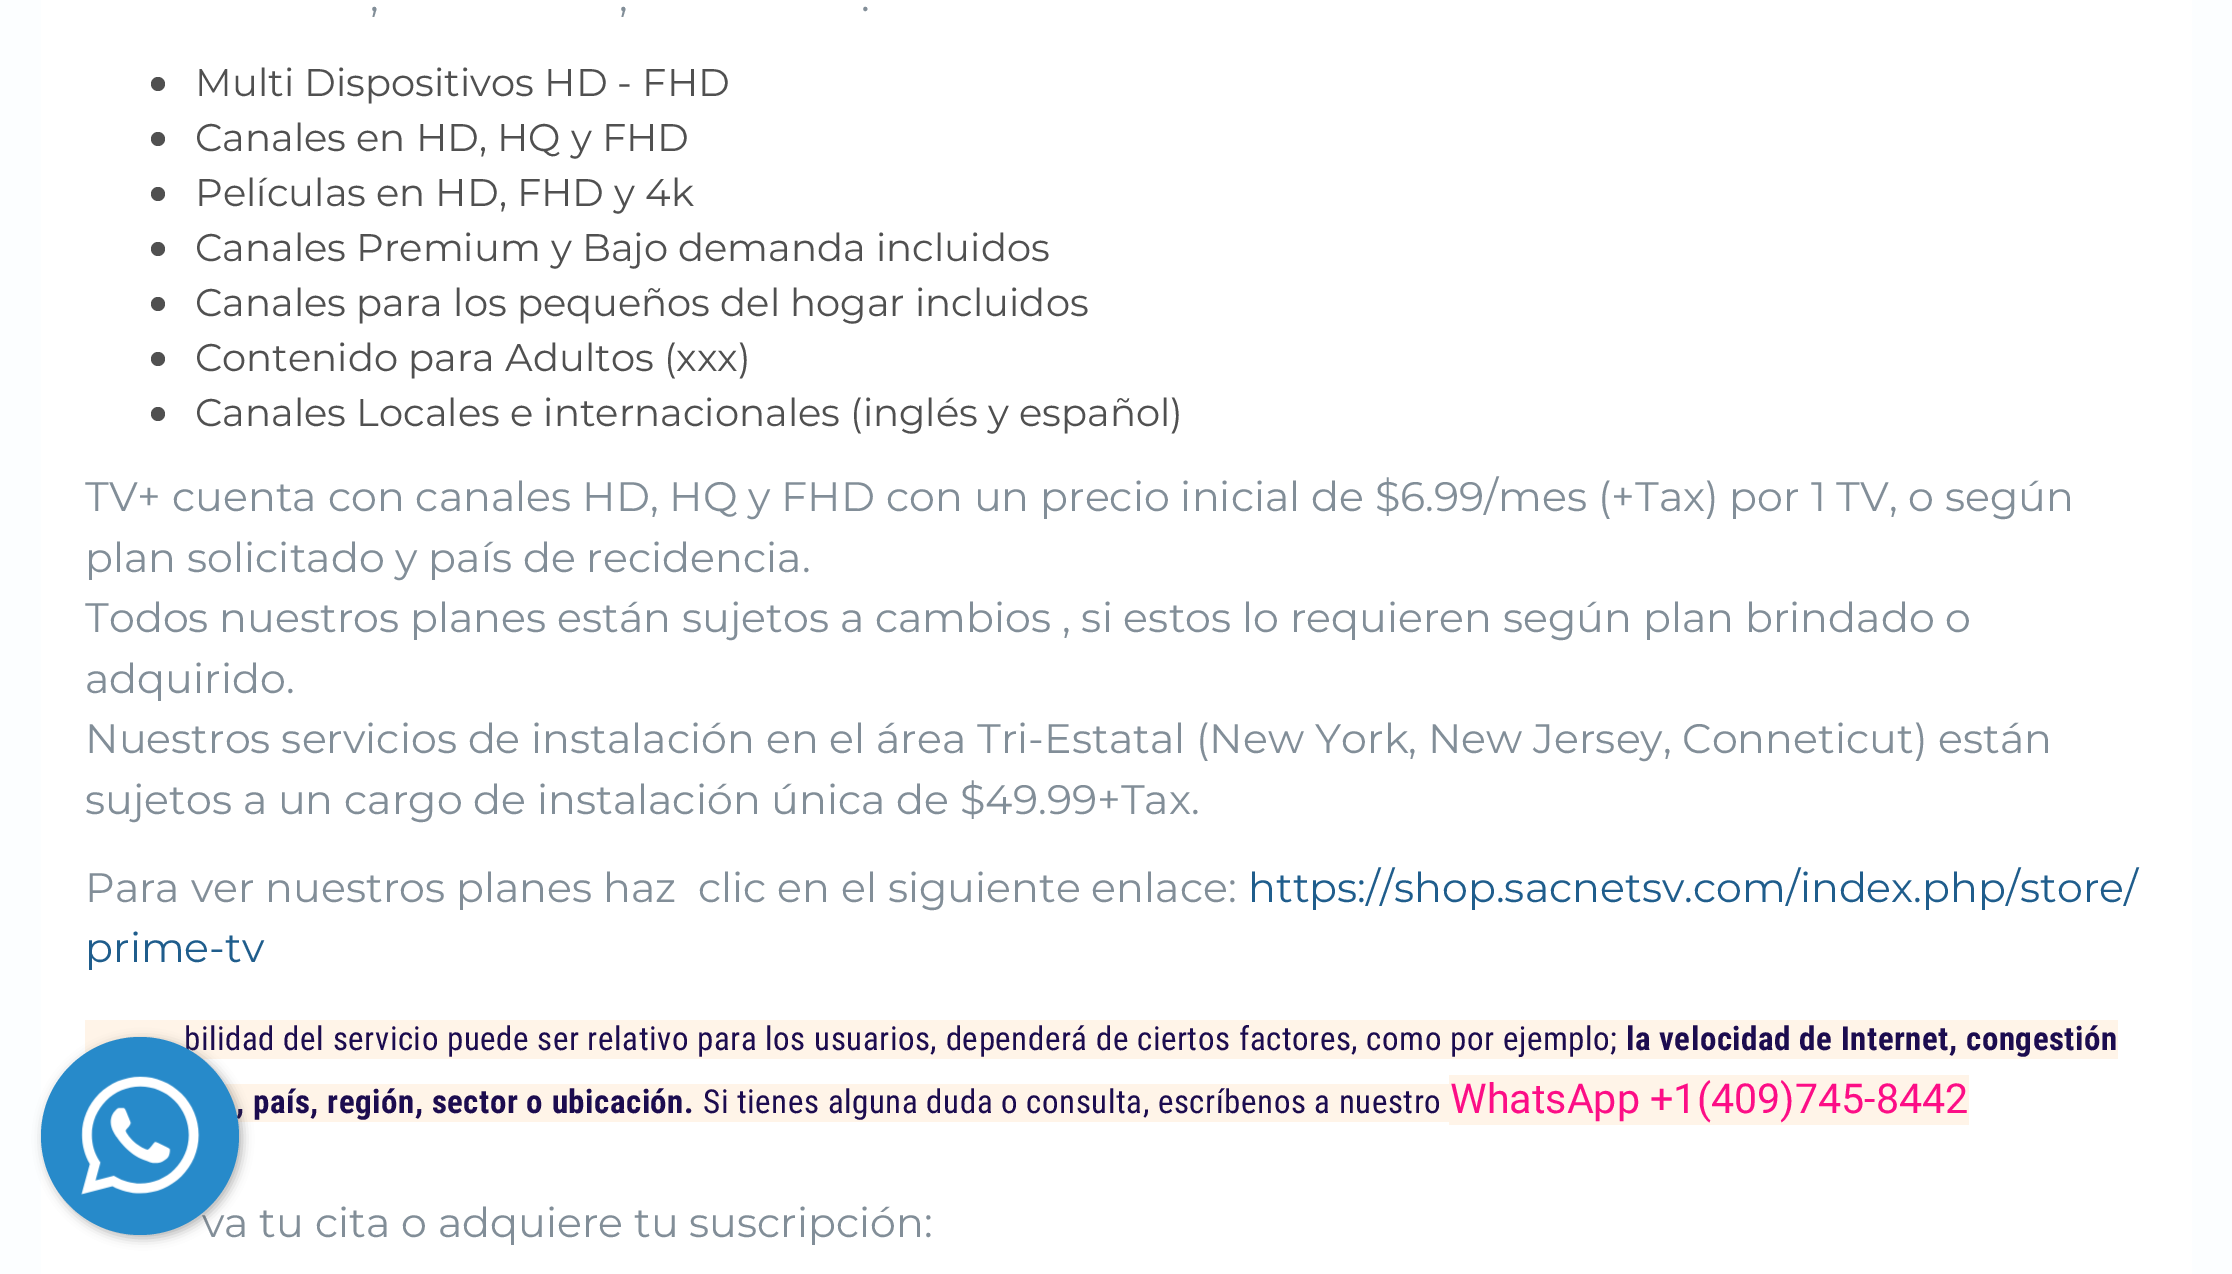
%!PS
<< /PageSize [2232 1274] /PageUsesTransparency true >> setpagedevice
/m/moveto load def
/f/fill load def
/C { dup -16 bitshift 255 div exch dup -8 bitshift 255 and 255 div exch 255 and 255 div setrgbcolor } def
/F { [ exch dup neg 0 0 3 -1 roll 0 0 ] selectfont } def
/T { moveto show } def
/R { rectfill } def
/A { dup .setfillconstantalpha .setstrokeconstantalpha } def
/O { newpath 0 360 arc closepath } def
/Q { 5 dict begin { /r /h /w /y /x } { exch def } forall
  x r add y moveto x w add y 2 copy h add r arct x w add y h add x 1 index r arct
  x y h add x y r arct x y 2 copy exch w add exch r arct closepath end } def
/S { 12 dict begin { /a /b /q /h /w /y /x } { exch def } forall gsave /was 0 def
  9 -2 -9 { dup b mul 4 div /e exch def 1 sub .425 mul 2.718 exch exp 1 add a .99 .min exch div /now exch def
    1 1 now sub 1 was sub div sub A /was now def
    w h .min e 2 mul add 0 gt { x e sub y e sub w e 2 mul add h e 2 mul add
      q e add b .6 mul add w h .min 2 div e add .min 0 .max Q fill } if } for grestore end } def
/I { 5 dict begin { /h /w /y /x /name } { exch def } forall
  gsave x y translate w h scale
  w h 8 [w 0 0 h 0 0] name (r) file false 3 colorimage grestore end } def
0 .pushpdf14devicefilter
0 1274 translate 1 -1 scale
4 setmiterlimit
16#FCFEFF C
0 0 2232 1274 R
16#FFFFFF C
41 0 2151 1274 R
/Montserrat-Regular 41.25 F
16#828E98 C
(,) 370 11 T
(,) 619 11 T
(.) 861 11 T
16#505050 C
158 84 7 O f
/Montserrat-Regular 38.5 F
(Multi Dispositivos HD - FHD) 195 96 T
158 139 7 O f
(Canales en HD, HQ y FHD) 195 151 T
158 194 7 O f
(Películas en HD, FHD y 4k) 195 206 T
158 249 7 O f
(Canales Premium y Bajo demanda incluidos) 195 261 T
158 304 7 O f
(Canales para los pequeños del hogar incluidos) 195 316 T
158 359 7 O f
(Contenido para Adultos \(xxx\)) 195 371 T
158 414 7 O f
(Canales Locales e internacionales \(inglés y español\)) 195 426 T
/Montserrat-Regular 41.25 F
16#828E98 C
(TV+ cuenta con canales HD, HQ y FHD con un precio inicial de $6.99/mes \(+Tax\) por 1 TV, o según) 85 511 T
(plan solicitado y país de recidencia.) 85 572 T
(Todos nuestros planes están sujetos a cambios , si estos lo requieren según plan brindado o) 85 632 T
(adquirido.) 85 693 T
(Nuestros servicios de instalación en el área Tri-Estatal \(New York, New Jersey, Conneticut\) están) 85 753 T
(sujetos a un cargo de instalación única de $49.99+Tax.) 85 814 T
(Para ver nuestros planes haz  clic en el siguiente enlace:) 85 902 T
16#1F5D8C C
(https://shop.sacnetsv.com/index.php/store/) 1248 902 T
(prime-tv) 85 962 T
16#FFF4E8 C
85 1020 2033 39 R
/RobotoCondensed-Regular 33 F
16#1C0C4F C
184 1050 m .55 0 (bilidad del servicio puede ser relativo para los usuarios, dependerá de ciertos factores, como por ejemplo;) ashow
/RobotoCondensed-Bold 33 F
1626 1050 m .55 0 (la velocidad de Internet, congestión) ashow
16#FFF4E8 C
224 1084 1225 38 R
16#1C0C4F C
236 1113 m .55 0 (, país, región, sector o ubicación.) ashow
/RobotoCondensed-Regular 33 F
703 1113 m .55 0 (Si tienes alguna duda o consulta, escríbenos a nuestro) ashow
16#FFF4E8 C
1449 1075 520 50 R
/Roboto-Regular 41.25 F
16#FC0E86 C
(WhatsApp +1\(409\)745-8442) 1450 1113 T
/Montserrat-Regular 41.25 F
16#828E98 C
(va tu cita o adquiere tu suscripción:) 202 1237 T
16#3C3C3C C
44 1040 198 198 99 5.5 .4 S
16#278ACA C
140 1136 99 O f
(1.rgb) 81 1076 119 119 I
.poppdf14devicefilter showpage
